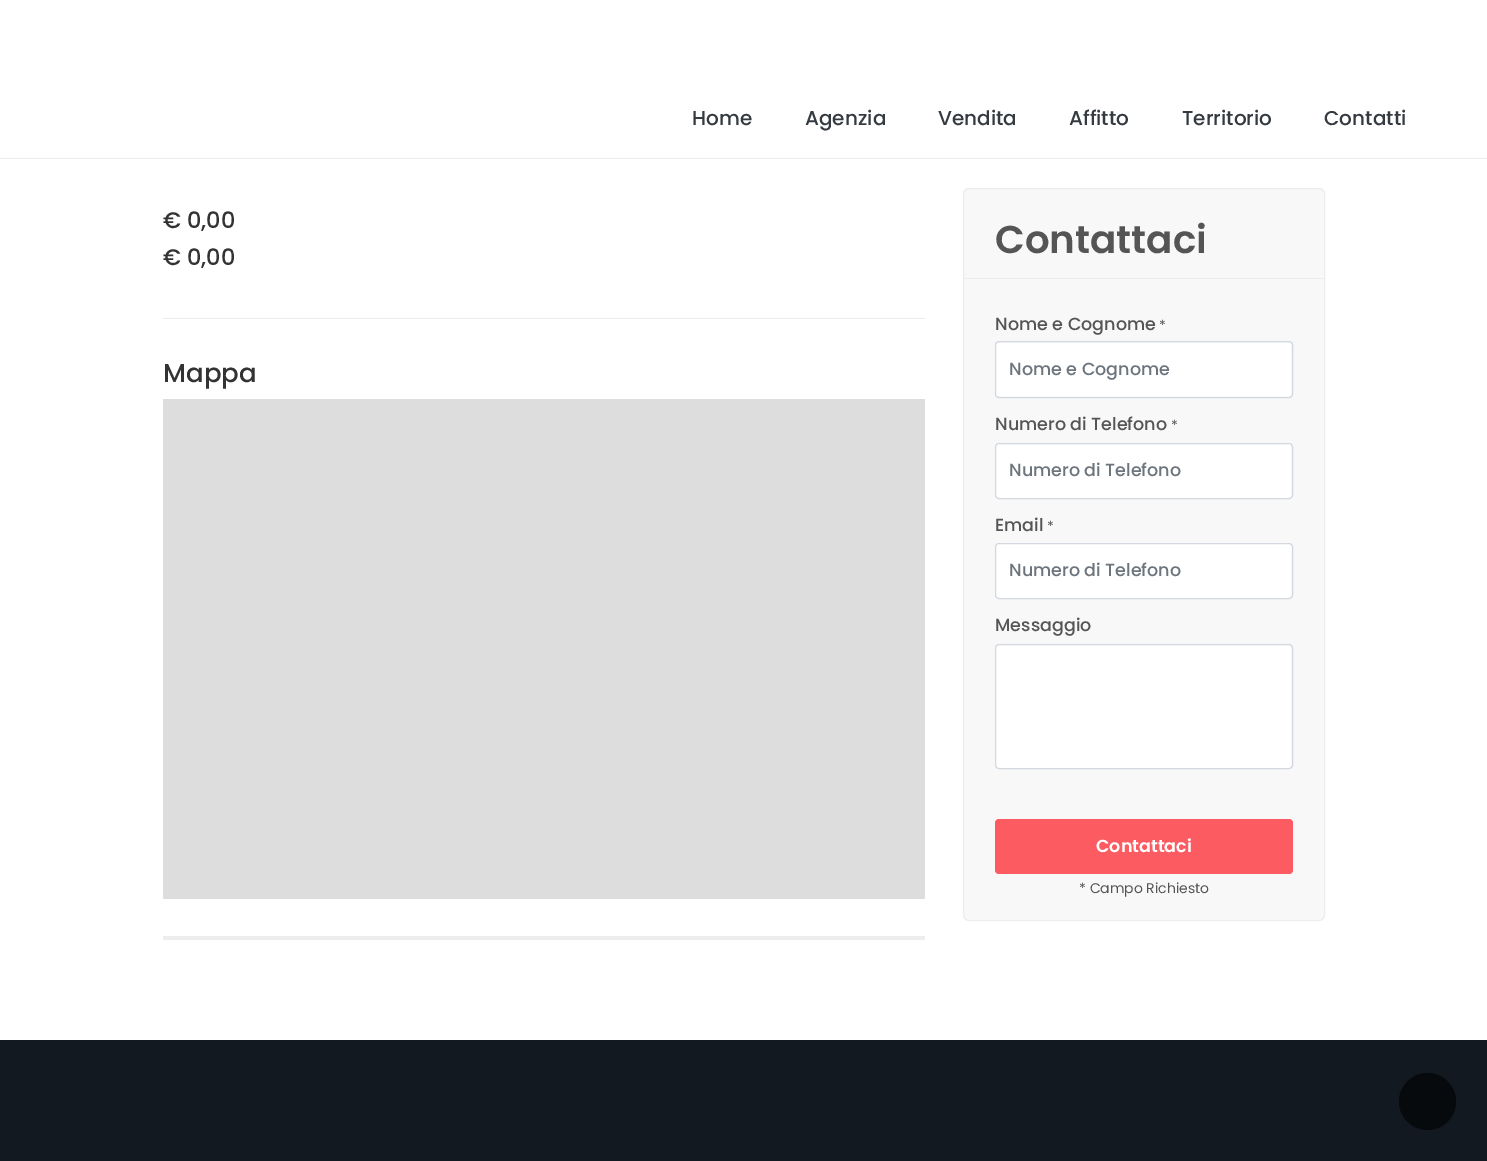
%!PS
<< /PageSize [1487 1161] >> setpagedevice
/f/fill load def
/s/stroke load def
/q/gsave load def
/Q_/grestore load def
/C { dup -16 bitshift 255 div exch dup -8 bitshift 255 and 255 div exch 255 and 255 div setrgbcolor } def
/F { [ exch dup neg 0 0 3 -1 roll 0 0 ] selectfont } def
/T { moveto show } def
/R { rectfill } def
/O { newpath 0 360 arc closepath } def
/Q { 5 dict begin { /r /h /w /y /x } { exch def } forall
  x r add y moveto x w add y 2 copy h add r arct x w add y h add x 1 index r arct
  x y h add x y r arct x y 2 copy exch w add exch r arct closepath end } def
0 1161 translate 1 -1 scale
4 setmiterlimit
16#121921 C
0 0 1487 1161 R
16#FFFFFF C
0 0 1487 158 R
16#EDEDED C
0 158 1487 1 R
/Poppins-Medium 20 F
16#343A40 C
(Home) 692 125 T
(Agenzia) 805 125 T
(Vendita) 938 125 T
(Affitto) 1069 125 T
(Territorio) 1182 125 T
(Contatti) 1324 125 T
16#FFFFFF C
0 159 1487 881 R
16#EDEDED C
163 936 762 4 R
/Poppins-Medium 22.5 F
16#333333 C
(€ 0,00) 163 228 T
(€ 0,00) 163 265 T
16#EDEDED C
163 318 762 1 R
/Poppins-Medium 26 F
16#333333 C
(Mappa) 163 382 T
16#DDDDDD C
163 399 762 500 R
16#F8F8F8 C
963.5 188.5 361 732 5.5 Q q f Q_
16#EDEDED C
s
964 278 360 1 R
/Poppins-SemiBold 38.75 F
16#555555 C
(Contattaci) 995 253 T
/Poppins-Medium 17.5 F
(Nome e Cognome) 995 330 T
/Poppins-Regular 14 F
(*) 1159 330 T
16#FFFFFF C
996 343 295 53 2.5 Q f
16#D2D8DD C
995.5 341.5 297 56 3.5 Q s
/Poppins-Medium 17.5 F
16#6C757D C
(Nome e Cognome) 1009 375 T
16#555555 C
(Numero di Telefono) 995 430 T
/Poppins-Regular 14 F
(*) 1171 430 T
16#FFFFFF C
996 444 295 54 2.5 Q f
16#D2D8DD C
995.5 443.5 297 55 3.5 Q s
/Poppins-Medium 17.5 F
16#6C757D C
(Numero di Telefono) 1009 476 T
16#555555 C
(Email) 995 531 T
/Poppins-Regular 14 F
(*) 1047 531 T
16#FFFFFF C
996 544 295 54 2.5 Q f
16#D2D8DD C
995.5 543.5 297 55 3.5 Q s
/Poppins-Medium 17.5 F
16#6C757D C
(Numero di Telefono) 1009 576 T
16#555555 C
(Messaggio) 995 631 T
16#FFFFFF C
996 645 295 123 2.5 Q f
16#D2D8DD C
995.5 644.5 297 124 3.5 Q s
16#FC5B62 C
995 819 298 55 4 Q f
/Poppins-SemiBold 17.5 F
16#FFFFFF C
(Contattaci) 1096 852 T
/Poppins-Regular 14 F
16#555555 C
(* Campo Richiesto) 1079 893 T
16#070A0D C
1427.5 1101.5 28.5 O f
showpage
